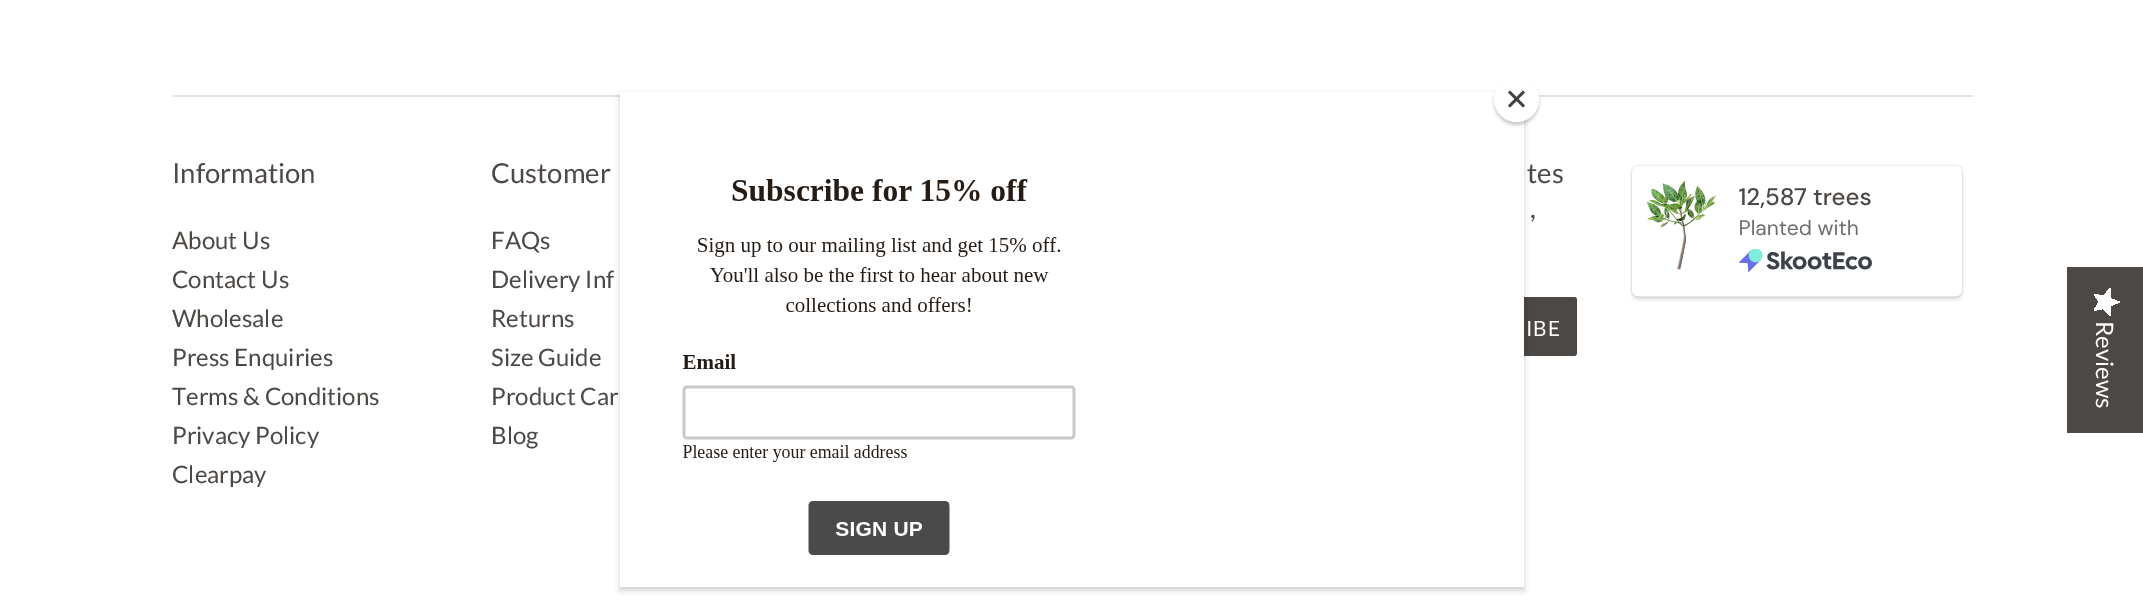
%!PS
<< /PageSize [2143 610] /PageUsesTransparency true >> setpagedevice
/m/moveto load def
/l/rlineto load def
/c/rcurveto load def
/z/closepath load def
/f/fill load def
/s/stroke load def
/q/gsave load def
/Q_/grestore load def
/w/setlinewidth load def
/C { dup -16 bitshift 255 div exch dup -8 bitshift 255 and 255 div exch 255 and 255 div setrgbcolor } def
/F { [ exch dup neg 0 0 3 -1 roll 0 0 ] selectfont } def
/T { moveto show } def
/R { rectfill } def
/A { dup .setfillconstantalpha .setstrokeconstantalpha } def
/O { newpath 0 360 arc closepath } def
/Q { 5 dict begin { /r /h /w /y /x } { exch def } forall
  x r add y moveto x w add y 2 copy h add r arct x w add y h add x 1 index r arct
  x y h add x y r arct x y 2 copy exch w add exch r arct closepath end } def
/S { 12 dict begin { /a /b /q /h /w /y /x } { exch def } forall gsave /was 0 def
  9 -2 -9 { dup b mul 4 div /e exch def 1 sub .425 mul 2.718 exch exp 1 add a .99 .min exch div /now exch def
    1 1 now sub 1 was sub div sub A /was now def
    w h .min e 2 mul add 0 gt { x e sub y e sub w e 2 mul add h e 2 mul add
      q e add b .6 mul add w h .min 2 div e add .min 0 .max Q fill } if } for grestore end } def
/I { 5 dict begin { /h /w /y /x /name } { exch def } forall
  gsave x y translate w h scale
  w h 8 [w 0 0 h 0 0] name (r) file false 3 colorimage grestore end } def
0 .pushpdf14devicefilter
0 610 translate 1 -1 scale
4 setmiterlimit
16#FFFFFF C
0 0 2143 610 R
16#E4E4E4 C
173 95 1800 2 R
2 w
1165 298 411 57 2 Q s
16#4C4845 C
1428 297 m 146 0 l 1.5 0 3 1.5 3 3 c 0 53 l 0 1.5 -1.5 3 -3 3 c -146 0 l z f
q
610 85 m 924 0 l 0 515 l -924 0 l z 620 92 m 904 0 l 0 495 l -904 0 l z eoclip newpath
16#000000 C
620 95 904 495 0 3 .2 S
Q_
(1.rgb) 620 95 904 492 I
16#000000 C
1494 80 45 45 22.5 1.5 .2 S
16#FFFFFF C
1516.5 99.5 22.5 O f
16#414141 C
1523 90.5 m 2 2 l -15 15 l -2 -2 l z f
1508 92.5 m 2 -2 l 15 15 l -2 2 l z f
/Lato-Regular 27.5 F
16#4C4845 C
(Information) 172 183 T
/Lato-Regular 24 F
(About Us) 172 249 T
(Contact Us) 172 288 T
(Wholesale) 172 327 T
(Press Enquiries) 172 366 T
(Terms & Conditions) 172 405 T
(Privacy Policy) 172 444 T
(Clearpay) 172 483 T
/Lato-Regular 27.5 F
(Customer) 491 183 T
/Lato-Regular 24 F
(FAQs) 491 249 T
(Delivery Inf) 491 288 T
(Returns) 491 327 T
(Size Guide) 491 366 T
(Product Car) 491 405 T
(Blog) 491 444 T
/Lato-Regular 27.5 F
(tes) 1527 183 T
(,) 1530 218 T
/Lato-Regular 21 F
16#FFFFFF C
1526 336 m 1 0 (IBE) ashow
(2.rgb) 1630 164 334 138 I
16#4C4845 C
2067 267 76 166 R
q 2099 302 m -5 8.5 l 9.5 -2 l 6.5 7 l .5 -9.5 l 9 -4 l -9 -3.5 l -.5 -10 l -6.5 7.5 l -9.5 -2 l z clip newpath
<< /ShadingType 2 /ColorSpace /DeviceRGB /Coords [2120 289 2120 316] /Extend [true true] /Function << /FunctionType 2 /Domain [0 1] /C0 [1 1 1] /C1 [1 1 1] /N 1 >> >> shfill Q_
/Lato-Regular 24 F
16#FFFFFF C
q 2096 321 translate 90 rotate 0 0 m (Reviews) show Q_
.poppdf14devicefilter showpage
